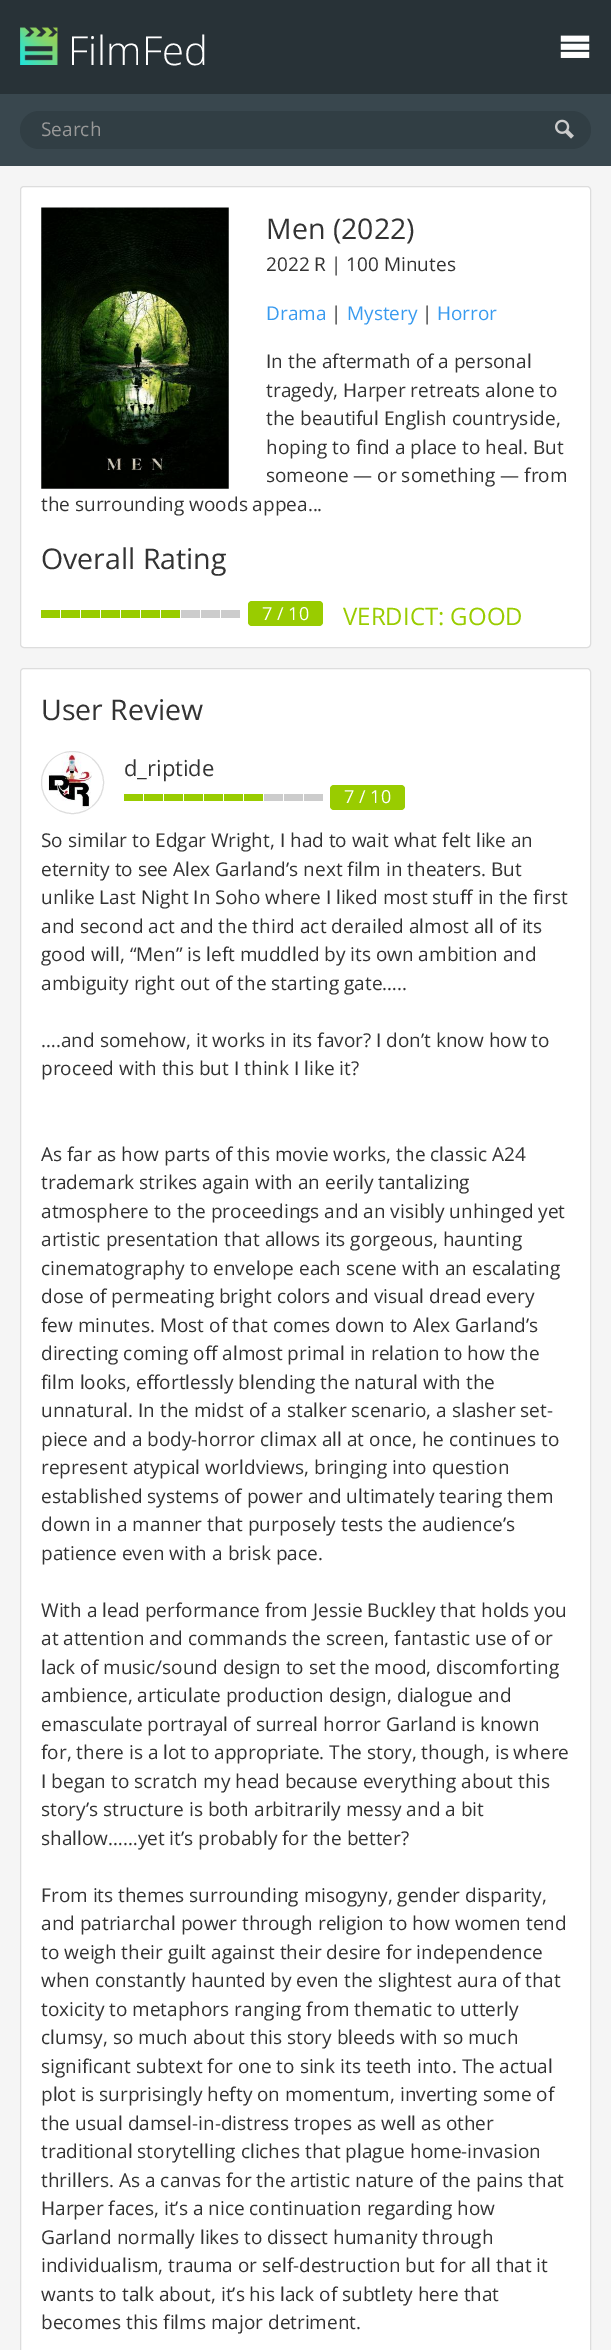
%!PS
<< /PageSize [611 2350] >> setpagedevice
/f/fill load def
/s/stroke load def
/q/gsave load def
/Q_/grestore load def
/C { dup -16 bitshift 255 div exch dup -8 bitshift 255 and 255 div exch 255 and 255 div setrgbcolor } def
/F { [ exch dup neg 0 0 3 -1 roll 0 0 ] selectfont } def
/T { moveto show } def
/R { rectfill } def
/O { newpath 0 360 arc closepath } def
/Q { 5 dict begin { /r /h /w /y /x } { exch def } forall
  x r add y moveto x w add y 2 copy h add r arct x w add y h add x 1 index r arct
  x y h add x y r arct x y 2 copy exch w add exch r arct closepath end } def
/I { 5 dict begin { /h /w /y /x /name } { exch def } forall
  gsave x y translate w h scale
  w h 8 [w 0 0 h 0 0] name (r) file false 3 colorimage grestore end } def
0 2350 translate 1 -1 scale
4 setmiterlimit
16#F5F5F5 C
0 0 611 2350 R
16#283237 C
0 0 611 94 R
(1.rgb) 20 27 38 38 I
/OpenSans-Light 40 F
16#FFFFFF C
(FilmFed) 68 65 T
(2.rgb) 560 35 30 23 I
16#39474E C
0 94 611 72 R
16#313E44 C
20 111 571 38 19 Q f
/OpenSans-Regular 19 F
16#999999 C
(Search) 41 136 T
(3.rgb) 555 119 19 20 I
16#FFFFFF C
20.5 186.5 570 461 3.5 Q q f Q_
16#DDDDDD C
s
(4.rgb) 41 207 188 282 I
/OpenSans-Regular 28.5 F
16#333333 C
(Men \(2022\)) 266 239 T
/OpenSans-Regular 19 F
(2022 R | 100 Minutes) 266 271 T
16#399BEF C
(Drama) 266 320 T
16#333333 C
(|) 331 320 T
16#399BEF C
(Mystery) 347 320 T
16#333333 C
(|) 422 320 T
16#399BEF C
(Horror) 437 320 T
16#333333 C
(In the aftermath of a personal) 266 368 T
(tragedy, Harper retreats alone to) 266 397 T
(the beautiful English countryside,) 266 425 T
(hoping to find a place to heal. But) 266 454 T
(someone — or something — from) 266 482 T
(the surrounding woods appea...) 41 511 T
/OpenSans-Regular 28.5 F
(Overall Rating) 41 569 T
16#99CC00 C
41 610 19 8 R
61 610 19 8 R
81 610 19 8 R
101 610 19 8 R
121 610 19 8 R
141 610 19 8 R
161 610 19 8 R
16#CCCCCC C
181 610 19 8 R
201 610 19 8 R
221 610 19 8 R
16#99CC00 C
248 601 75 25 4 Q f
/OpenSans-Regular 18 F
16#FFFFFF C
(7 / 10) 262 620 T
/OpenSans-Regular 24 F
16#99CC00 C
(VERDICT: GOOD) 343 625 T
16#FFFFFF C
20.5 668.5 570 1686 3.5 Q q f Q_
16#DDDDDD C
s
/OpenSans-Regular 28.5 F
16#333333 C
(User Review) 41 720 T
16#DDDDDD C
72.5 782.5 31 O s
(5.rgb) 48 753 44 57 I
/OpenSans-Regular 22 F
16#333333 C
(d_riptide) 124 776 T
16#99CC00 C
124 794 19 7 R
144 794 19 7 R
164 794 19 7 R
184 794 19 7 R
204 794 19 7 R
224 794 19 7 R
244 794 19 7 R
16#CCCCCC C
264 794 19 7 R
284 794 19 7 R
304 794 19 7 R
16#99CC00 C
330 785 75 25 4 Q f
/OpenSans-Regular 18 F
16#FFFFFF C
(7 / 10) 344 803 T
/OpenSans-Regular 19 F
16#333333 C
(So similar to Edgar Wright, I had to wait what felt like an) 41 847 T
(eternity to see Alex Garland’s next film in theaters. But) 41 876 T
(unlike Last Night In Soho where I liked most stuff in the first) 41 904 T
(and second act and the third act derailed almost all of its) 41 933 T
(good will, “Men” is left muddled by its own ambition and) 41 961 T
(ambiguity right out of the starting gate…..) 41 990 T
(….and somehow, it works in its favor? I don’t know how to) 41 1047 T
(proceed with this but I think I like it?) 41 1075 T
(As far as how parts of this movie works, the classic A24) 41 1161 T
(trademark strikes again with an eerily tantalizing) 41 1189 T
(atmosphere to the proceedings and an visibly unhinged yet) 41 1218 T
(artistic presentation that allows its gorgeous, haunting) 41 1246 T
(cinematography to envelope each scene with an escalating) 41 1275 T
(dose of permeating bright colors and visual dread every) 41 1303 T
(few minutes. Most of that comes down to Alex Garland’s) 41 1332 T
(directing coming off almost primal in relation to how the) 41 1360 T
(film looks, effortlessly blending the natural with the) 41 1389 T
(unnatural. In the midst of a stalker scenario, a slasher set-) 41 1417 T
(piece and a body-horror climax all at once, he continues to) 41 1446 T
(represent atypical worldviews, bringing into question) 41 1474 T
(established systems of power and ultimately tearing them) 41 1503 T
(down in a manner that purposely tests the audience’s) 41 1531 T
(patience even with a brisk pace.) 41 1560 T
(With a lead performance from Jessie Buckley that holds you) 41 1617 T
(at attention and commands the screen, fantastic use of or) 41 1645 T
(lack of music/sound design to set the mood, discomforting) 41 1674 T
(ambience, articulate production design,) 41 1702 T
(dialogue and) 397 1702 T
(emasculate portrayal of surreal horror Garland is known) 41 1731 T
(for, there is a lot to appropriate. The story, though, is where) 41 1759 T
(I began to scratch my head because everything about this) 41 1788 T
(story’s structure is both arbitrarily messy and a bit) 41 1816 T
(shallow……yet it’s probably for the better?) 41 1845 T
(From its themes surrounding misogyny, gender disparity,) 41 1902 T
(and patriarchal power through religion to how women tend) 41 1930 T
(to weigh their guilt against their desire for independence) 41 1959 T
(when constantly haunted by even the slightest aura of that) 41 1987 T
(toxicity to metaphors ranging from thematic to utterly) 41 2016 T
(clumsy, so much about this story bleeds with so much) 41 2044 T
(significant subtext for one to sink its teeth into. The actual) 41 2073 T
(plot is surprisingly hefty on momentum, inverting some of) 41 2101 T
(the usual damsel-in-distress tropes as well as other) 41 2130 T
(traditional storytelling cliches that plague home-invasion) 41 2158 T
(thrillers. As a canvas for the artistic nature of the pains that) 41 2187 T
(Harper faces, it’s a nice continuation regarding how) 41 2215 T
(Garland normally likes to dissect humanity through) 41 2244 T
(individualism, trauma or self-destruction but for all that it) 41 2272 T
(wants to talk about, it’s his lack of subtlety here that) 41 2301 T
(becomes this films major detriment.) 41 2329 T
showpage
